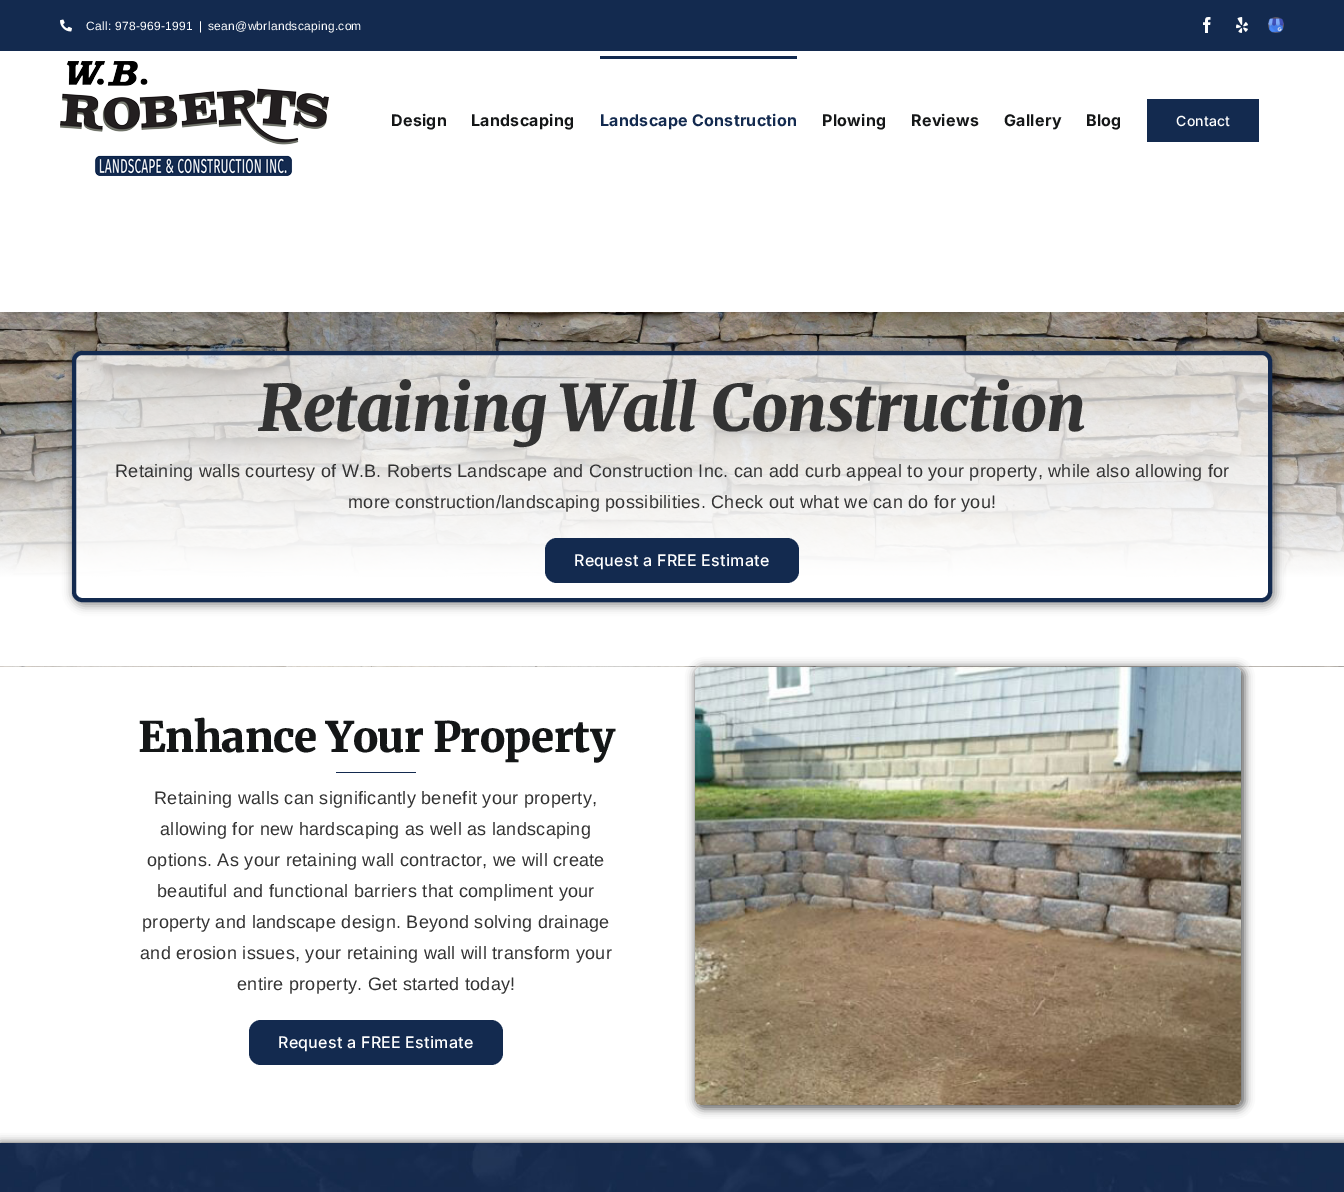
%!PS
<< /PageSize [1344 1192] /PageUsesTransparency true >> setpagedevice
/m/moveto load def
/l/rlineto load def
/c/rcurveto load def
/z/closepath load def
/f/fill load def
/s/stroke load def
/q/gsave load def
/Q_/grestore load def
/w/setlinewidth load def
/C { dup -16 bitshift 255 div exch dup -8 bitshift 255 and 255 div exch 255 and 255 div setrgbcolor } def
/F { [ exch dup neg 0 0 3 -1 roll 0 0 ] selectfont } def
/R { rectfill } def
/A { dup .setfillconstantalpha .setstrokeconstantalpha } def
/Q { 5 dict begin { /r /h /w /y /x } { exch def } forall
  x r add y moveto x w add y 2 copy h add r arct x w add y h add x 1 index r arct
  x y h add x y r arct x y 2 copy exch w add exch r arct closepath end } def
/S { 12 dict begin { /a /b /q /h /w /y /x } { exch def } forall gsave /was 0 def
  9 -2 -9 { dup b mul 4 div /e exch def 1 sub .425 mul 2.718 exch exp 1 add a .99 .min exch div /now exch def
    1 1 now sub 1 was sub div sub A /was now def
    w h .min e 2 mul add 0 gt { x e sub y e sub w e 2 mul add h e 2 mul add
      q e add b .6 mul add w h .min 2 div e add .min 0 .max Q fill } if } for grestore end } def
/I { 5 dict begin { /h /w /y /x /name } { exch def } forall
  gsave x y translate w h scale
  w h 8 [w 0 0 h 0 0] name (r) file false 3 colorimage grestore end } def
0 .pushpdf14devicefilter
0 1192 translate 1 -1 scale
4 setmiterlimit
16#FFFFFF C
0 0 1344 1192 R
(6.rgb) 0 312 1344 355 I
q
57 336 m 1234 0 l 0 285 l -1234 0 l z 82 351 m 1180 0 l 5.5 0 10 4.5 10 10 c 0 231 l 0 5.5 -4.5 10 -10 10 c -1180 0 l -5.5 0 -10 -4.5 -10 -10 c 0 -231 l 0 -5.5 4.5 -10 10 -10 c z eoclip newpath
16#0F0F0F C
72 351 1204 255 12 4.5 .4 S
Q_
0.7 A
74 353 1196 247 8 Q f
1 A
16#132A4F C
4 w
74 353 1196 247 8 Q s
q
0 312 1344 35 rectclip
16#000000 C
2 12 1340 308 0 25 .14 S
Q_
0 0 1344 51 R
(1.rgb) 60 19 12 13 I
/LiberationSans-Regular 12 F
16#FFFFFF C
86 30 m .27 0 (Call: 978-969-1991) ashow
199 30 m .27 0 (|) ashow
208 30 m .27 0 (sean@wbrlandscaping.com) ashow
(2.rgb) 1203 17 8 16 I
(3.rgb) 1236 17 12 16 I
(4.rgb) 1268 17 16 16 I
(5.rgb) 60 61 269 115 I
/Inter-Bold 16 F
16#141617 C
391 126 m .25 0 (Design) ashow
471 126 m .25 0 (Landscaping) ashow
16#132A4F C
600 56 197 3 R
600 126 m .25 0 (Landscape Construction) ashow
16#141617 C
822 126 m .25 0 (Plowing) ashow
911 126 m .25 0 (Reviews) ashow
1004 126 m .25 0 (Gallery) ashow
1086 126 m .25 0 (Blog) ashow
16#132A4F C
1147 99 112 43 R
/Inter-Medium 14 F
16#FFFFFF C
1176 126 m .25 0 (Contact) ashow
/Merriweather-BlackItalic 64 F
16#333333 C
258 431 m -.95 0 (Retaining Wall Construction) ashow
/LiberationSans-Regular 18 F
115 477 m .27 0 (Retaining walls courtesy of W.B. Roberts Landscape and Construction Inc. can add curb appeal to your property, while also allowing for) ashow
348 508 m .27 0 (more construction/landscaping possibilities. Check out what we can do for you!) ashow
16#132A4F C
545 538 254 45 12 Q f
/Inter-Medium 16 F
16#FFFFFF C
574 566 m .25 0 (Request a FREE Estimate) ashow
/Merriweather-Light 42 F
16#141617 C
138 752 m -.6 0 (Enhance Your Property) ashow
16#132A4F C
336 772 80 1 R
/LiberationSans-Regular 18 F
16#333333 C
154 804 m .27 0 (Retaining walls can significantly benefit your property,) ashow
160 835 m .27 0 (allowing for new hardscaping as well as landscaping) ashow
147 866 m .27 0 (options. As your retaining wall contractor, we will create) ashow
157 897 m .27 0 (beautiful and functional barriers that compliment your) ashow
142 928 m .27 0 (property and landscape design. Beyond solving drainage) ashow
140 959 m .27 0 (and erosion issues, your retaining wall will transform your) ashow
237 990 m .27 0 (entire property. Get started today!) ashow
16#132A4F C
249 1020 254 45 12 Q f
/Inter-Medium 16 F
16#FFFFFF C
278 1048 m .25 0 (Request a FREE Estimate) ashow
16#070707 C
695 667 550 442 8 4.5 .61 S
(7.rgb) 695 667 546 438 I
16#000000 C
0 1143 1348 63 0 4.5 .65 S
(8.rgb) 0 1143 1344 49 I
.poppdf14devicefilter showpage
